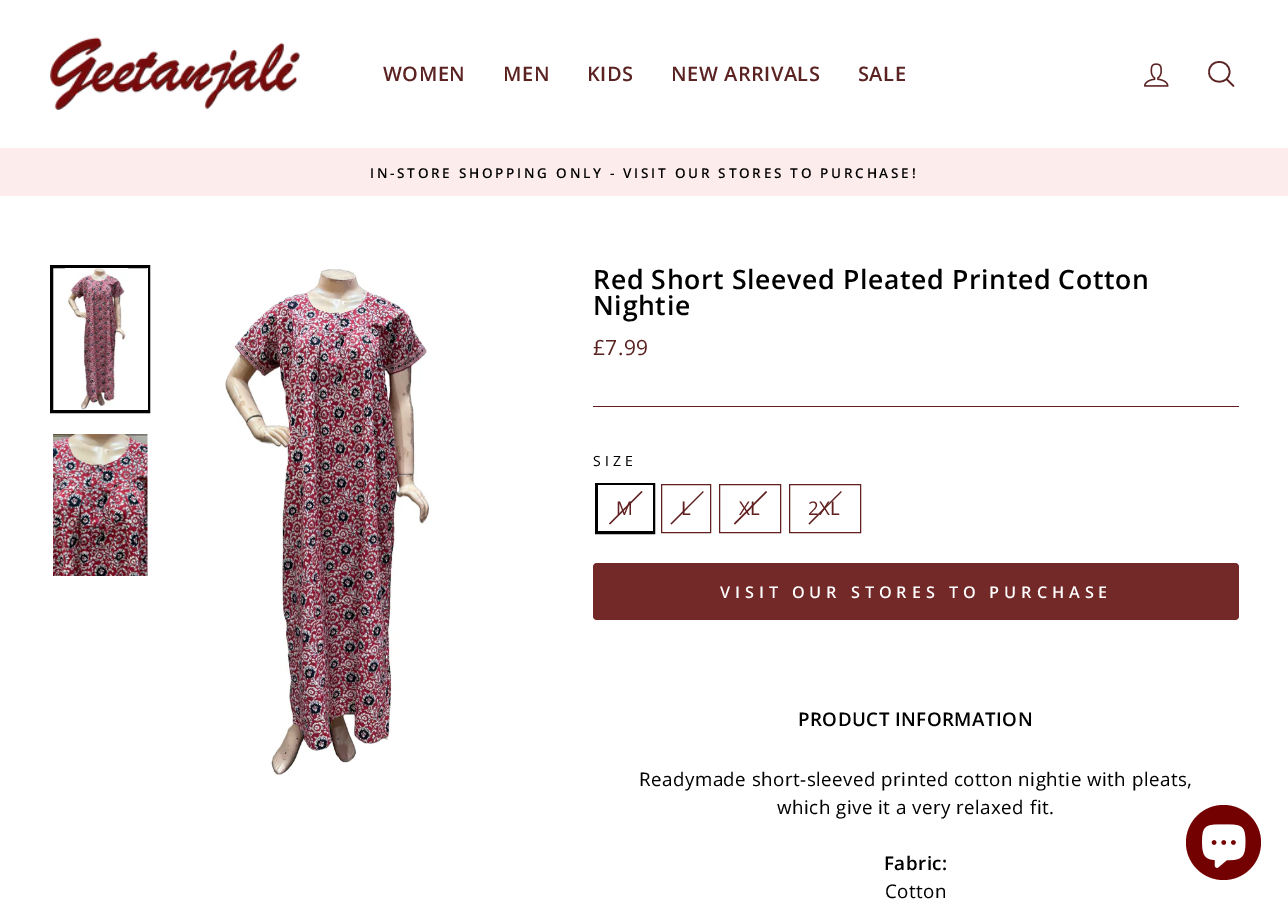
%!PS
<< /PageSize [1288 906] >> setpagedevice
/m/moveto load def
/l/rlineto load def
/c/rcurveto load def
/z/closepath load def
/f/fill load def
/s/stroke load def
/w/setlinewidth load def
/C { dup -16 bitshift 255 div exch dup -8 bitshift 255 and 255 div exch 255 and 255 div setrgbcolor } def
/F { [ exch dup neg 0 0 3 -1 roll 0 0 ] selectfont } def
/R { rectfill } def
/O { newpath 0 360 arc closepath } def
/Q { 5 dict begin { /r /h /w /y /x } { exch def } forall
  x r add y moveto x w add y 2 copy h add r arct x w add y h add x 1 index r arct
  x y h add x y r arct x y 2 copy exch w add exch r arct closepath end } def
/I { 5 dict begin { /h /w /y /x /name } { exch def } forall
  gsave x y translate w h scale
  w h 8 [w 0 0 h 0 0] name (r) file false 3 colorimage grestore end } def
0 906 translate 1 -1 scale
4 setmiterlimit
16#FFFFFF C
0 0 1288 906 R
(1.rgb) 50 37 250 73 I
/OpenSans-SemiBold 20 F
16#5B2222 C
383 81 m .5 0 (WOMEN) ashow
503 81 m .5 0 (MEN) ashow
587 81 m .5 0 (KIDS) ashow
671 81 m .5 0 (NEW ARRIVALS) ashow
858 81 m .5 0 (SALE) ashow
(2.rgb) 1144 63 25 24 I
1.6 w
1 setlinecap
1 setlinejoin
1229.5 72 m 0 13 -20.5 13 -20.5 0 c 0 -13.5 20.5 -13.5 20.5 0 c z 1233.5 86 m -7 -7 l s
16#FDECEC C
0 148 1288 48 R
/OpenSans-SemiBold 13.55 F
16#000000 C
370 178 m 2.7 0 (IN-STORE SHOPPING ONLY - VISIT OUR STORES TO PURCHASE!) ashow
3 w
0 setlinecap
0 setlinejoin
51.5 266.5 97 145 rectstroke
16#FFFFFF C
147 268 1 142 R
(3.rgb) 65 268 63 142 I
(4.rgb) 53 434 95 142 I
(5.rgb) 225 269 207 507 I
/OpenSans-SemiBold 26.6 F
16#000000 C
593 289 m .65 0 (Red Short Sleeved Pleated Printed Cotton) ashow
593 315 m .65 0 (Nightie) ashow
/OpenSans-Regular 21 F
16#5B2222 C
593 355 m .47 0 (£7.99) ashow
16#612020 C
593 406 646 1 R
/OpenSans-Regular 14 F
16#000000 C
593 466 m 4 0 (SIZE) ashow
596.5 484.5 57 48 rectstroke
16#FFFFFF C
598 485 55 46 R
16#612020 C
641.5 491 m 1 1 l -32.5 32.5 l -1 -1 l z f
/OpenSans-Regular 18.75 F
616 515 m .47 0 (M) ashow
1 w
661.5 484.5 49 48 rectstroke
703 491 m .5 1 l -32 32.5 l -1 -1 l z f
681 515 m .47 0 (L) ashow
719.5 484.5 61 48 rectstroke
766 491 m 1 1 l -32 32.5 l -1 -1 l z f
739 515 m .47 0 (XL) ashow
789.5 484.5 71 48 rectstroke
841 491 m .5 1 l -32 32.5 l -1 -1 l z f
808 515 m .47 0 (2XL) ashow
16#742929 C
593 563 646 57 4 Q f
/OpenSans-SemiBold 16.25 F
16#FFFFFF C
720 598 m 4.9 0 (VISIT OUR STORES TO PURCHASE) ashow
/OpenSans-SemiBold 18.75 F
16#000000 C
798 726 m .47 0 (PRODUCT INFORMATION) ashow
/OpenSans-Regular 18.75 F
639 786 m .47 0 (Readymade short-sleeved printed cotton nightie with pleats,) ashow
777 814 m .47 0 (which give it a very relaxed fit.) ashow
/OpenSans-SemiBold 18.75 F
884 870 m .47 0 (Fabric:) ashow
/OpenSans-Regular 18.75 F
885 898 m .47 0 (Cotton) ashow
16#740101 C
1223.5 842.5 37.5 O f
(6.rgb) 1202 824 44 44 I
showpage
